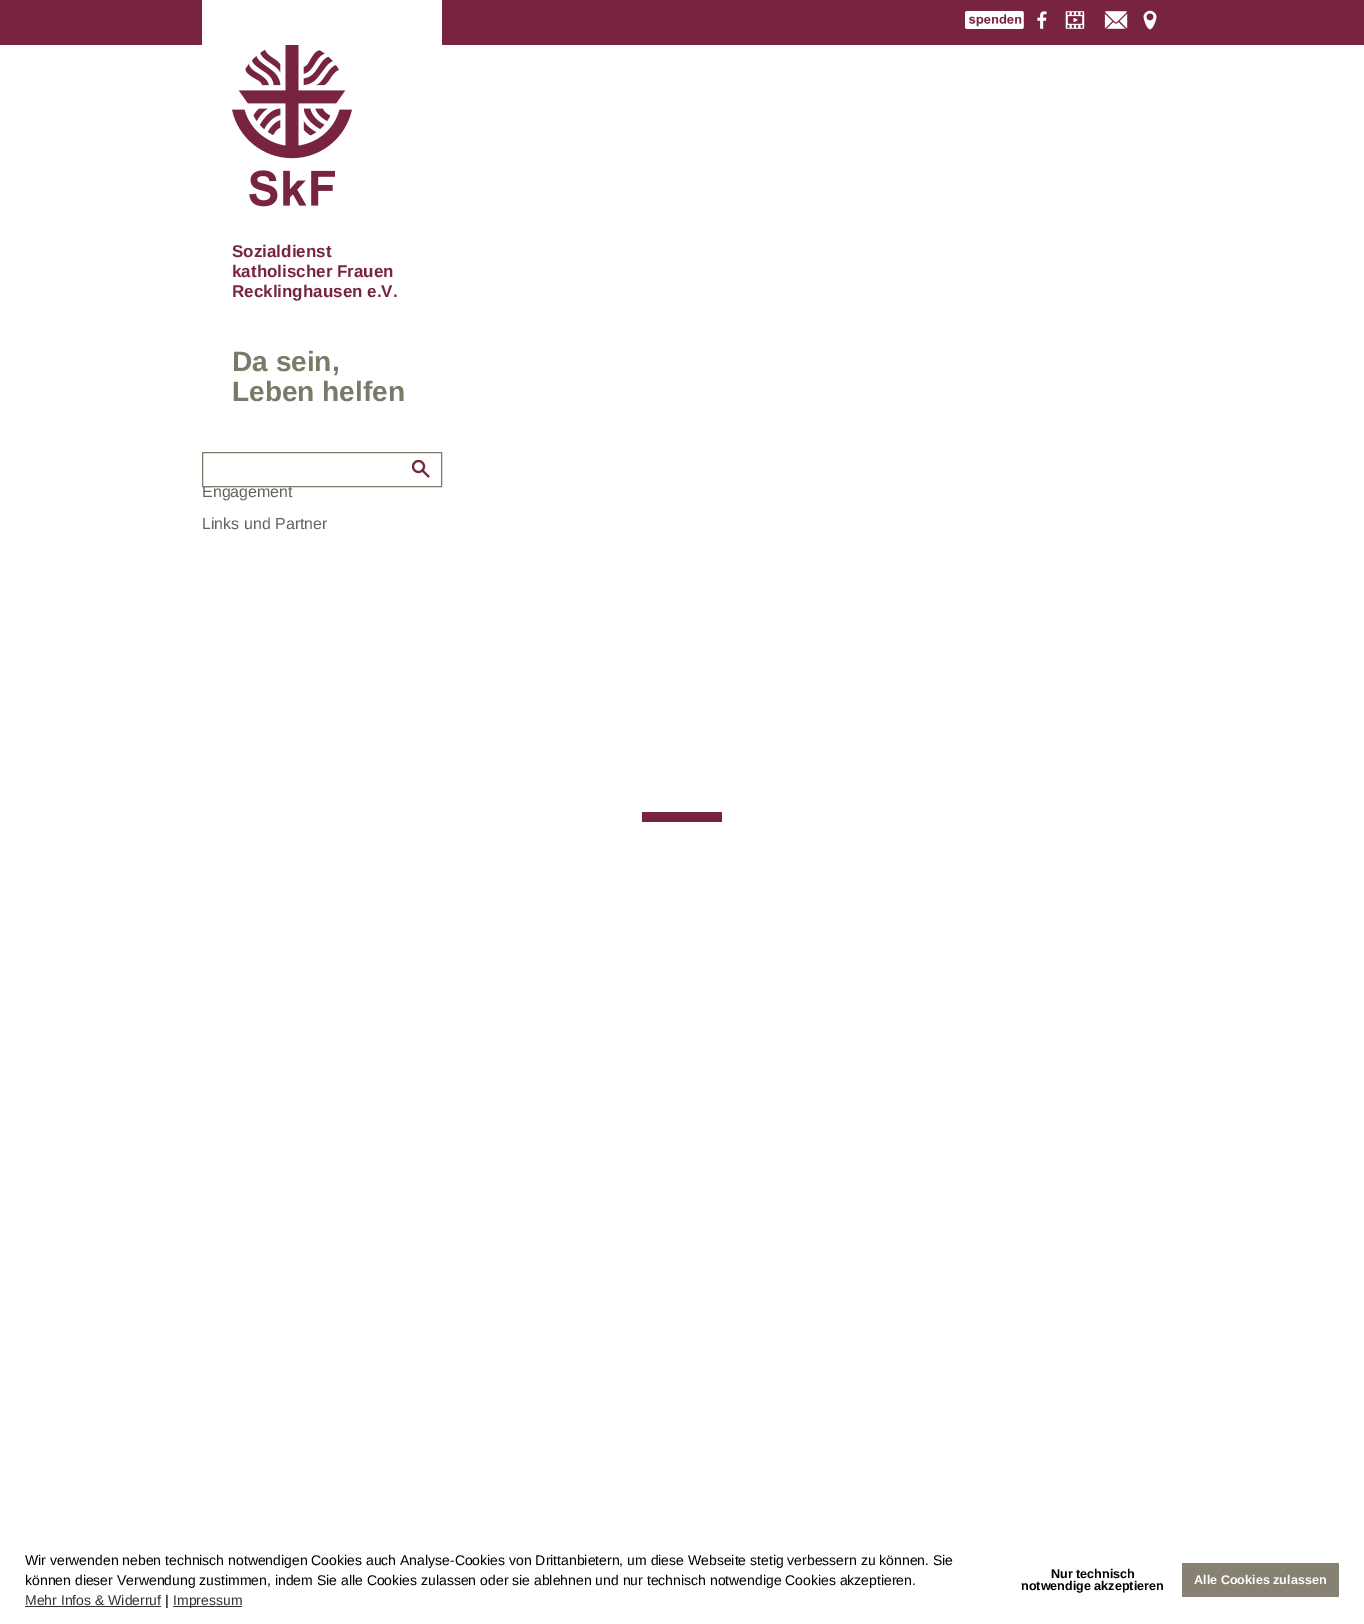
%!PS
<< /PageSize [1364 1624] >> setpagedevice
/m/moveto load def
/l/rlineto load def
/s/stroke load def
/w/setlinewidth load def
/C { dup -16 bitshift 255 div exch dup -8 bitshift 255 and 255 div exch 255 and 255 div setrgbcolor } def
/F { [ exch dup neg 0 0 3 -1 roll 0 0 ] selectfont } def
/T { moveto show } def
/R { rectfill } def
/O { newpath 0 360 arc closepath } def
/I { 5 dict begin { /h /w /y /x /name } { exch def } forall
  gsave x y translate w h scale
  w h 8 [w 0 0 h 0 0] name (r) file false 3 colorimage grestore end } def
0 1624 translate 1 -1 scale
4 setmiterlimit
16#FFFFFF C
0 0 1364 1624 R
16#78243E C
0 0 1364 45 R
(1.rgb) 965 11 59 18 I
(2.rgb) 1037 11 10 18 I
(3.rgb) 1065 11 20 18 I
(4.rgb) 1104 11 24 18 I
(5.rgb) 1143 10 14 20 I
16#FFFFFF C
202 0 240 45 R
(6.rgb) 232 45 120 162 I
/LiberationSans-Bold 17 F
16#78243E C
(Sozialdienst) 232 257 T
(katholischer Frauen) 232 277 T
(Recklinghausen e.V.) 232 297 T
/LiberationSans-Bold 28 F
16#7B7A69 C
(Da sein,) 232 371 T
(Leben helfen) 232 401 T
/LiberationSans-Regular 16 F
16#656361 C
(Engagement) 202 497 T
16#7B7A69 C
202.5 452.5 239 34 rectstroke
16#78243E C
2 w
418.5 466.5 5.5 O s
422 470 m 7 7 l s
16#656361 C
(Links und Partner) 202 529 T
16#78243E C
642 812 80 10 R
/LiberationSans-Regular 14 F
16#000000 C
(Wir verwenden neben technisch notwendigen Cookies auch Analyse-Cookies von Drittanbietern, um diese Webseite stetig verbessern zu können. Sie) 25 1565 T
(können dieser Verwendung zustimmen, indem Sie alle Cookies zulassen oder sie ablehnen und nur technisch notwendige Cookies akzeptieren.) 25 1585 T
16#333333 C
(Mehr Infos & Widerruf) 25 1605 T
25 1606 136 1 R
16#000000 C
(|) 165 1605 T
16#333333 C
173 1606 69 1 R
(Impressum) 173 1605 T
/LiberationSans-Bold 12.6 F
16#000000 C
(Nur technisch) 1051 1578 T
(notwendige akzeptieren) 1021 1590 T
16#868173 C
1182 1563 157 34 R
16#FFFFFF C
(Alle Cookies zulassen) 1194 1584 T
showpage
